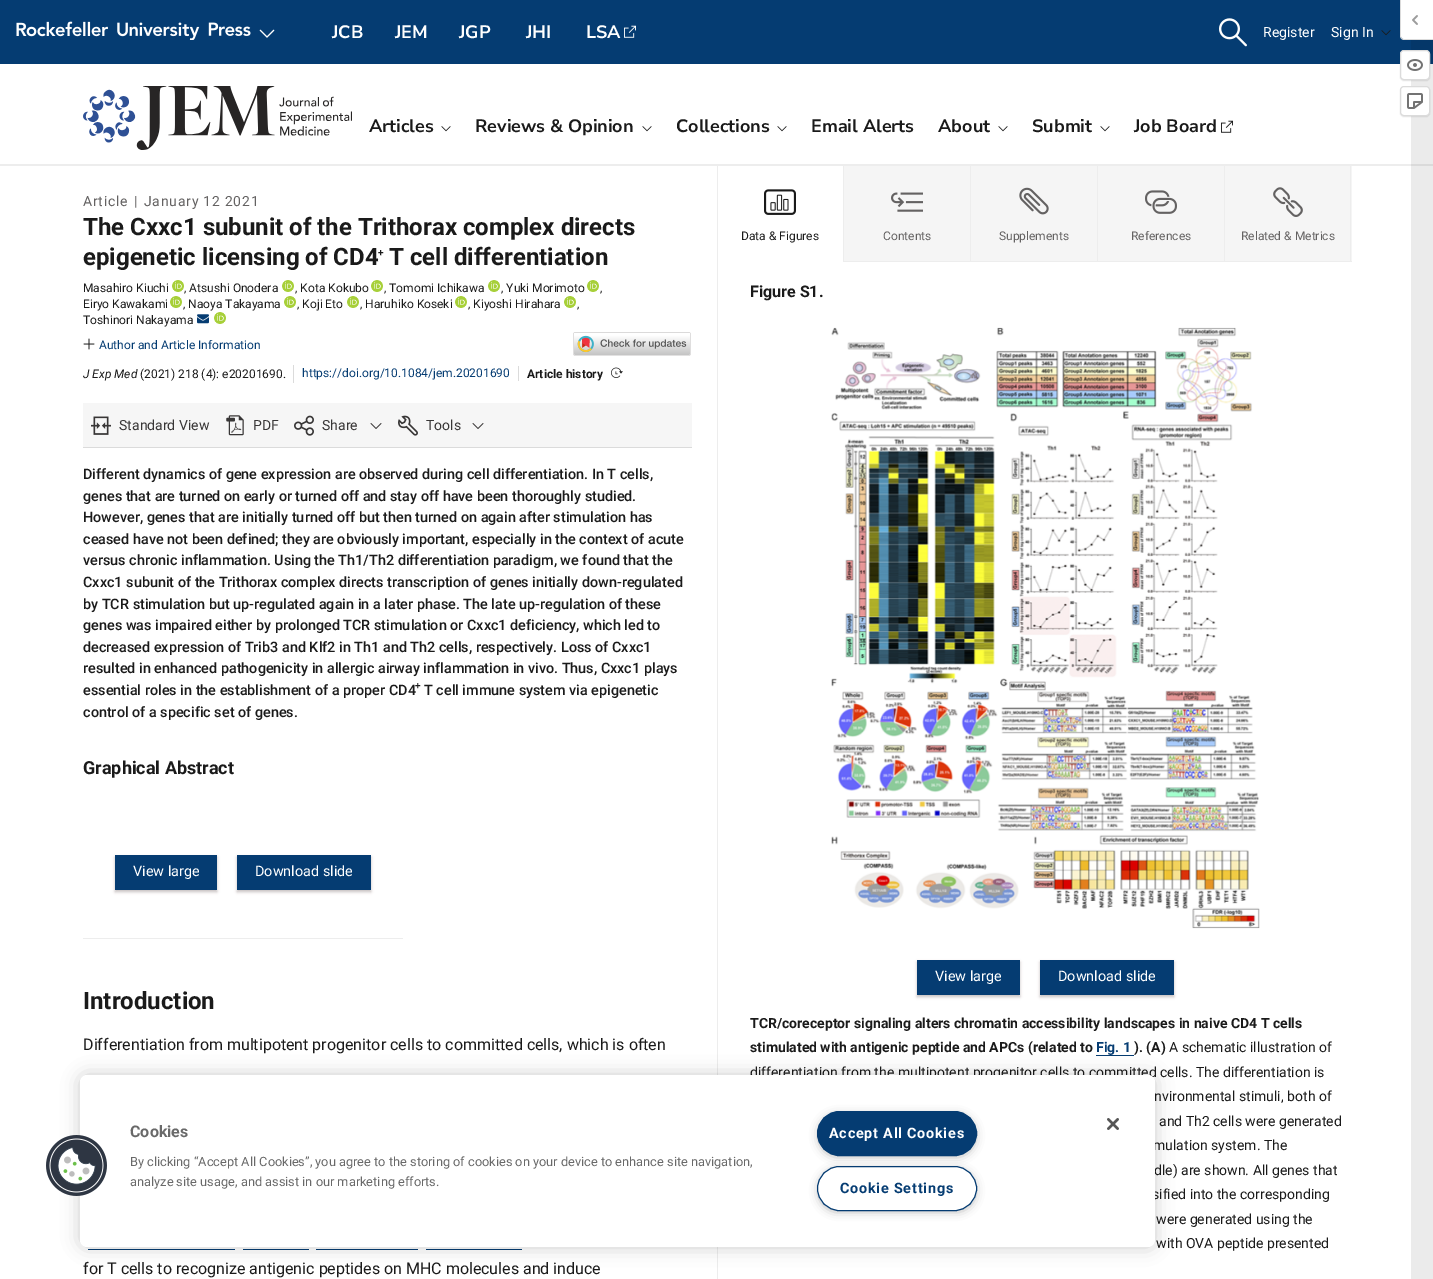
%!PS
<< /PageSize [1433 1279] /PageUsesTransparency true >> setpagedevice
/m/moveto load def
/l/rlineto load def
/c/rcurveto load def
/z/closepath load def
/f/fill load def
/s/stroke load def
/q/gsave load def
/Q_/grestore load def
/C { dup -16 bitshift 255 div exch dup -8 bitshift 255 and 255 div exch 255 and 255 div setrgbcolor } def
/F { [ exch dup neg 0 0 3 -1 roll 0 0 ] selectfont } def
/T { moveto show } def
/R { rectfill } def
/A { dup .setfillconstantalpha .setstrokeconstantalpha } def
/Q { 5 dict begin { /r /h /w /y /x } { exch def } forall
  x r add y moveto x w add y 2 copy h add r arct x w add y h add x 1 index r arct
  x y h add x y r arct x y 2 copy exch w add exch r arct closepath end } def
/S { 12 dict begin { /a /b /q /h /w /y /x } { exch def } forall gsave /was 0 def
  9 -2 -9 { dup b mul 4 div /e exch def 1 sub .425 mul 2.718 exch exp 1 add a .99 .min exch div /now exch def
    1 1 now sub 1 was sub div sub A /was now def
    w h .min e 2 mul add 0 gt { x e sub y e sub w e 2 mul add h e 2 mul add
      q e add b .6 mul add w h .min 2 div e add .min 0 .max Q fill } if } for grestore end } def
/I { 5 dict begin { /h /w /y /x /name } { exch def } forall
  gsave x y translate w h scale
  w h 8 [w 0 0 h 0 0] name (r) file false 3 colorimage grestore end } def
0 .pushpdf14devicefilter
0 1279 translate 1 -1 scale
4 setmiterlimit
16#FFFFFF C
0 0 1433 1279 R
16#EBEBEB C
1411 64 22 1215 R
16#053C72 C
0 0 1411 64 R
16#053769 C
1411 40 22 24 R
(1.rgb) 16 21 235 19 I
(2.rgb) 259 29 16 9 I
/NunitoSans-Bold 18 F
16#FFFFFF C
(JCB) 332 38 T
(JEM) 395 38 T
(JGP) 459 38 T
(JHI) 526 38 T
(LSA) 586 38 T
(3.rgb) 624 25 12 13 I
(4.rgb) 1219 18 28 29 I
/Roboto-Regular 14 F
(Register) 1263 37 T
(Sign In) 1331 37 T
(5.rgb) 1381 30 10 6 I
16#EDEDED C
0 164 1411 2 R
16#DADADA C
1411 164 22 2 R
(6.rgb) 83 86 269 64 I
/NunitoSans-Bold 18 F
16#1A1A1A C
(Articles) 369 132 T
(7.rgb) 441 126 10 6 I
(Reviews & Opinion) 475 132 T
(7.rgb) 642 126 10 6 I
(Collections) 676 132 T
(7.rgb) 777 126 10 6 I
(Email Alerts) 811 132 T
(About) 938 132 T
(7.rgb) 998 126 10 6 I
(Submit) 1032 132 T
(7.rgb) 1100 126 10 6 I
(Job Board) 1134 132 T
(8.rgb) 1221 120 12 13 I
16#FFFFFF C
1401 0 m 32 0 l 0 39 l -29 0 l -1.5 0 -3 -1.5 -3 -3 c z f
16#DBDBDB C
1400 0 m 33 0 l 0 40 l -29 0 l -2 0 -4 -2 -4 -4 c z 1401 0 m 32 0 l 0 39 l -29 0 l -2 0 -3 -1 -3 -3 c z eofill
(9.rgb) 1412 15 6 10 I
16#000000 C
1400 51 30 30 4 .5 .1 S
16#FFFFFF C
1400.5 50.5 29 29 3.5 Q q f Q_
16#DBDBDB C
s
(10.rgb) 1407 59 16 12 I
16#000000 C
1400 87 30 30 4 .5 .1 S
16#FFFFFF C
1400.5 86.5 29 29 3.5 Q q f Q_
16#DBDBDB C
s
(11.rgb) 1407 93 16 16 I
/Roboto-Regular 14 F
16#646262 C
83 206 m .75 0 (Article) ashow
134 206 m .75 0 (|) ashow
144 206 m .75 0 (January 12 2021) ashow
/Roboto-Bold 24 F
16#1A1A1A C
(The Cxxc1 subunit of the Trithorax complex directs) 83 235 T
(epigenetic licensing of CD4) 83 265 T
/Roboto-Bold 10 F
(+) 378 256 T
/Roboto-Bold 24 F
(T cell differentiation) 389 265 T
/Roboto-Regular 12 F
(Masahiro Kiuchi) 83 292 T
(12.rgb) 172 280 12 12 I
(, Atsushi Onodera) 184 292 T
(12.rgb) 282 280 12 12 I
(, Kota Kokubo) 295 292 T
(13.rgb) 371 280 12 12 I
(, Tomomi Ichikawa) 384 292 T
(13.rgb) 488 280 12 12 I
(, Yuki Morimoto) 501 292 T
(12.rgb) 587 280 12 12 I
(,) 600 292 T
(Eiryo Kawakami) 83 308 T
(12.rgb) 170 296 12 12 I
(, Naoya Takayama) 183 308 T
(13.rgb) 284 296 12 12 I
(, Koji Eto) 297 308 T
(13.rgb) 347 296 12 12 I
(, Haruhiko Koseki) 360 308 T
(13.rgb) 455 296 12 12 I
(, Kiyoshi Hirahara) 468 308 T
(12.rgb) 564 296 12 12 I
(,) 577 308 T
(Toshinori Nakayama) 83 324 T
(14.rgb) 197 314 12 10 I
(12.rgb) 214 312 12 12 I
(15.rgb) 83 338 12 12 I
16#053C72 C
(Author and Article Information) 99 349 T
(16.rgb) 573 332 118 24 I
16#DBDBDB C
293 365 1 18 R
/Roboto-Italic 12 F
16#1A1A1A C
(J Exp Med) 83 378 T
/Roboto-Regular 12 F
(\(2021\) 218 \(4\): e20201690.) 140 378 T
16#DBDBDB C
518 366 1 15 R
16#053C72 C
(https://doi.org/10.1084/jem.20201690) 302 377 T
/Roboto-Bold 12 F
16#1A1A1A C
(Article history) 527 378 T
(17.rgb) 611 367 12 11 I
16#F6F6F6 C
83 403 609 44 R
16#DBDBDB C
83 447 609 1 R
(18.rgb) 91 416 20 19 I
/Roboto-Regular 14 F
16#383636 C
(Standard View) 119 430 T
(19.rgb) 226 415 18 21 I
(PDF) 253 430 T
(20.rgb) 294 415 20 21 I
(Share) 322 430 T
(21.rgb) 370 423 12 6 I
(22.rgb) 398 415 20 21 I
(Tools) 426 430 T
(21.rgb) 472 423 12 6 I
/Roboto-Medium 14.4 F
16#1A1A1A C
(Different dynamics of gene expression are observed during cell differentiation. In T cells,) 83 479 T
(genes that are turned on early or turned off and stay off have been thoroughly studied.) 83 501 T
(However, genes that are initially turned off but then turned on again after stimulation has) 83 522 T
(ceased have not been defined; they are obviously important, especially in the context of acute) 83 544 T
(versus chronic inflammation. Using the Th1/Th2 differentiation paradigm, we found that the) 83 565 T
(Cxxc1 subunit of the Trithorax complex directs transcription of genes initially down-regulated) 83 587 T
(by TCR stimulation but up-regulated again in a later phase. The late up-regulation of these) 83 609 T
(genes was impaired either by prolonged TCR stimulation or Cxxc1 deficiency, which led to) 83 630 T
(decreased expression of Trib3 and Klf2 in Th1 and Th2 cells, respectively. Loss of Cxxc1) 83 652 T
(resulted in enhanced pathogenicity in allergic airway inflammation in vivo. Thus, Cxxc1 plays) 83 673 T
(essential roles in the establishment of a proper CD4) 83 695 T
/Roboto-Medium 10 F
(+) 415 689 T
/Roboto-Medium 14.4 F
(T cell immune system via epigenetic) 424 695 T
(control of a specific set of genes.) 83 717 T
/Roboto-Bold 18 F
(Graphical Abstract) 83 774 T
16#EDEDED C
83 938 320 1 R
16#433838 C
115 857 102 35 0 1.5 .3 S
16#053C72 C
115 855 102 35 R
/Roboto-Regular 14.4 F
16#FFFFFF C
(View large) 133 876 T
16#433838 C
237 857 134 35 0 1.5 .3 S
16#053C72 C
237 855 134 35 R
16#FFFFFF C
(Download slide) 255 876 T
/Roboto-Bold 24 F
16#1A1A1A C
(Introduction) 83 1009 T
/Roboto-Regular 16 F
(Differentiation from multipotent progenitor cells to committed cells, which is often) 83 1050 T
16#053C72 C
88 1249 147 1 R
243 1249 66 1 R
316 1249 102 1 R
426 1249 96 1 R
16#1A1A1A C
(for T cells to recognize antigenic peptides on MHC molecules and induce) 83 1274 T
16#EDEDED C
717 166 1 1113 R
16#F5F5F5 C
844 166 508 95 R
16#EDEDED C
844 261 508 1 R
843 166 1 96 R
(23.rgb) 764 189 32 26 I
/Roboto-Regular 12 F
16#1A1A1A C
(Data & Figures) 741 240 T
16#EDEDED C
970 166 1 96 R
(24.rgb) 891 192 32 20 I
16#646262 C
(Contents) 883 240 T
16#EDEDED C
1097 166 1 96 R
(25.rgb) 1019 187 30 28 I
16#646262 C
(Supplements) 999 240 T
16#EDEDED C
1224 166 1 96 R
(26.rgb) 1145 190 32 24 I
16#646262 C
(References) 1131 240 T
16#EDEDED C
1350 166 1 96 R
(27.rgb) 1273 187 30 30 I
16#646262 C
(Related & Metrics) 1241 240 T
/Roboto-Bold 16 F
16#1A1A1A C
(Figure S1.) 750 297 T
(28.rgb) 831 327 429 602 I
16#433838 C
917 962 103 35 0 1.5 .3 S
16#053C72 C
917 960 103 35 R
/Roboto-Regular 14.4 F
16#FFFFFF C
(View large) 935 981 T
16#433838 C
1040 962 134 35 0 1.5 .3 S
16#053C72 C
1040 960 134 35 R
16#FFFFFF C
(Download slide) 1058 981 T
/Roboto-Bold 14 F
16#1A1A1A C
(TCR/coreceptor signaling alters chromatin accessibility landscapes in naive CD4 T cells) 750 1028 T
(stimulated with antigenic peptide and APCs \(related to) 750 1052 T
16#053C72 C
(Fig. 1) 1096 1052 T
1096 1055 38 1 R
16#1A1A1A C
(\). \(A\)) 1134 1052 T
/Roboto-Regular 14 F
(A schematic illustration of) 1169 1052 T
(differentiation from the multipotent progenitor cells to committed cells. The differentiation is) 750 1077 T
(nvironmental stimuli, both of) 1154 1101 T
(and Th2 cells were generated) 1159 1126 T
(mulation system. The) 1153 1150 T
(dle\) are shown. All genes that) 1154 1175 T
(sified into the corresponding) 1152 1199 T
(were generated using the) 1156 1224 T
(with OVA peptide presented) 1156 1248 T
16#000000 C
80 1075 1075 172 7 9 .2 S
16#FFFFFF C
80 1075 1075 172 7 Q f
(29.rgb) 46 1135 61 61 I
/Roboto-Bold 16 F
16#696969 C
(Cookies) 130 1137 T
/Roboto-Regular 12.8 F
(By clicking “Accept All Cookies”, you agree to the storing of cookies on your device to enhance site navigation,) 130 1166 T
(analyze site usage, and assist in our marketing efforts.) 130 1186 T
16#999999 C
820 1116 154 39 19.5 5 1 S
16#053C72 C
817.5 1111.5 159 44 22 Q q f Q_
s
/Roboto-Bold 14.4 F
16#FFFFFF C
829 1138 m .75 0 (Accept All Cookies) ashow
16#999999 C
820 1171 154 39 19.5 5 1 S
16#FFFFFF C
817.5 1166.5 159 44 22 Q q f Q_
16#053C72 C
s
840 1193 m .75 0 (Cookie Settings) ashow
(30.rgb) 1107 1118 12 12 I
.poppdf14devicefilter showpage
